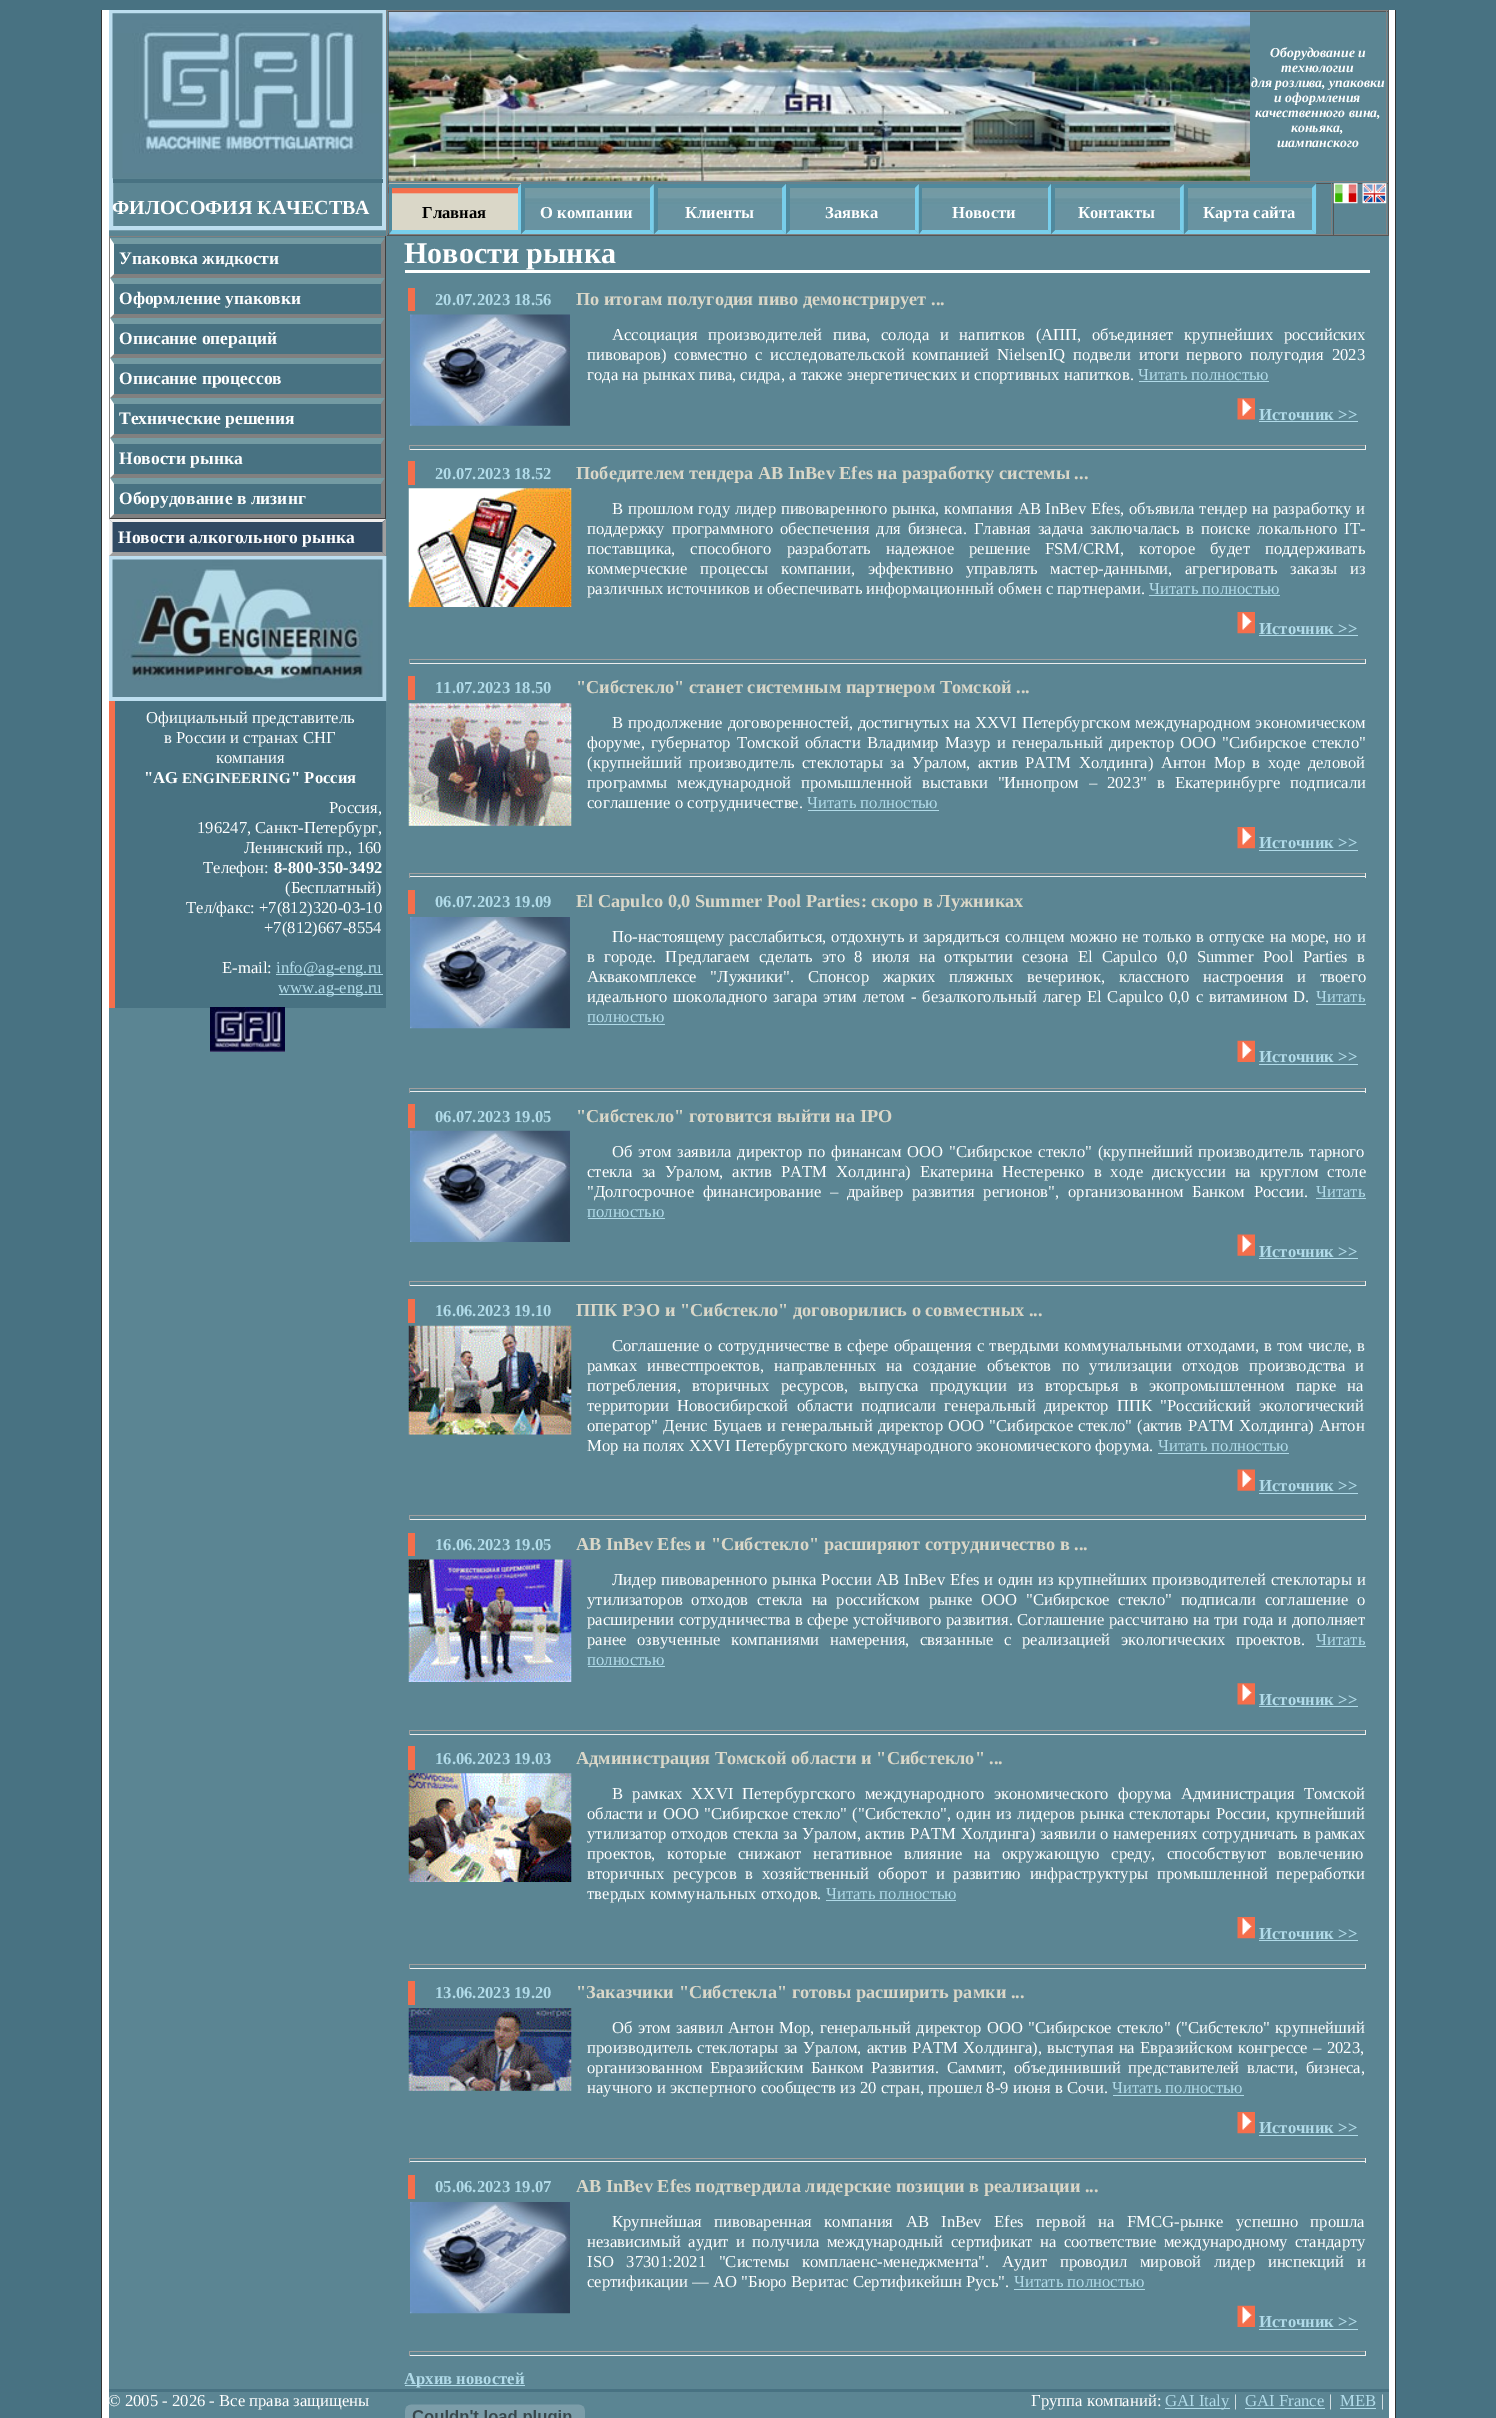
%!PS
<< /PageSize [1496 2418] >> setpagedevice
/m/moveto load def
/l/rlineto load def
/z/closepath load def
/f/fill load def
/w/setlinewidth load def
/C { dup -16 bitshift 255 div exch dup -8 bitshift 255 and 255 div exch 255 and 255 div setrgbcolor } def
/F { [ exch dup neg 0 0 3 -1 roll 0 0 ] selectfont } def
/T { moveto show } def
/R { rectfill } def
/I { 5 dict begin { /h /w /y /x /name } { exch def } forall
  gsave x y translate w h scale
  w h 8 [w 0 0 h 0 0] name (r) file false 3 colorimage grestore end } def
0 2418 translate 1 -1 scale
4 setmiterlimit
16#487282 C
0 0 1496 2418 R
16#FFFFFF C
102 10 1293 2408 R
16#333333 C
1395 10 1 2408 R
101 10 1 2408 R
16#5B8593 C
109 11 1280 2407 R
16#BDDEEF C
4 w
111 12 273 216 rectstroke
(1.rgb) 112 13 271 166 I
16#487282 C
113 179 270 4 R
/LiberationSerif-Bold 20 F
16#FFFFFF C
(ФИЛОСОФИЯ КАЧЕСТВА) 112 214 T
16#808080 C
386 10 1003 1 R
16#555555 C
1388 10 1 226 R
386 235 1003 1 R
16#808080 C
386 10 1 226 R
16#555555 C
388 11 1000 1 R
16#808080 C
1386 11 1 172 R
388 181 1000 1 R
16#555555 C
388 11 1 172 R
(2.rgb) 388 12 862 169 I
/LiberationSerif-BoldItalic 13.75 F
16#FFFFFF C
(Оборудование и) 1270 57 T
(технологии) 1281 72 T
(для розлива, упаковки) 1251 87 T
(и оформления) 1274 102 T
(качественного вина,) 1255 117 T
(коньяка,) 1291 132 T
(шампанского) 1277 147 T
16#555555 C
388 183 1000 1 R
16#808080 C
1331 183 1 52 R
388 234 945 1 R
16#555555 C
388 183 1 52 R
(3.rgb) 388 183 134 51 I
16#50899D C
389 184 m 132 0 l -3 4 l -126 0 l z f
16#78CEEB C
521 184 m 0 50 l -3 -4 l 0 -42 l z f
521 234 m -132 0 l 3 -4 l 126 0 l z f
16#50899D C
389 234 m 0 -50 l 3 4 l 0 42 l z f
/LiberationSerif-Bold 16.65 F
16#000000 C
(Главная) 422 218 T
(4.rgb) 521 183 133 50 I
16#50899D C
521 184 m 133 0 l -4 4 l -125 0 l z f
16#78CEEB C
654 184 m 0 50 l -4 -4 l 0 -42 l z f
654 234 m -133 0 l 4 -4 l 125 0 l z f
16#50899D C
521 234 m 0 -50 l 4 4 l 0 42 l z f
16#FFFFFF C
(О компании) 540 218 T
(5.rgb) 653 183 134 50 I
16#50899D C
654 184 m 132 0 l -4 4 l -124 0 l z f
16#78CEEB C
786 184 m 0 50 l -4 -4 l 0 -42 l z f
786 234 m -132 0 l 4 -4 l 124 0 l z f
16#50899D C
654 234 m 0 -50 l 4 4 l 0 42 l z f
16#FFFFFF C
(Клиенты) 685 218 T
(6.rgb) 786 183 133 50 I
16#50899D C
786 184 m 133 0 l -4 4 l -125 0 l z f
16#78CEEB C
919 184 m 0 50 l -4 -4 l 0 -42 l z f
919 234 m -133 0 l 4 -4 l 125 0 l z f
16#50899D C
786 234 m 0 -50 l 4 4 l 0 42 l z f
16#FFFFFF C
(Заявка) 825 218 T
(5.rgb) 918 183 134 50 I
16#50899D C
919 184 m 132 0 l -3 4 l -126 0 l z f
16#78CEEB C
1051 184 m 0 50 l -3 -4 l 0 -42 l z f
1051 234 m -132 0 l 3 -4 l 126 0 l z f
16#50899D C
919 234 m 0 -50 l 3 4 l 0 42 l z f
16#FFFFFF C
(Новости) 952 218 T
(6.rgb) 1051 183 133 50 I
16#50899D C
1051 184 m 133 0 l -4 4 l -125 0 l z f
16#78CEEB C
1184 184 m 0 50 l -4 -4 l 0 -42 l z f
1184 234 m -133 0 l 4 -4 l 125 0 l z f
16#50899D C
1051 234 m 0 -50 l 4 4 l 0 42 l z f
16#FFFFFF C
(Контакты) 1078 218 T
(5.rgb) 1183 183 134 50 I
16#50899D C
1184 184 m 132 0 l -4 4 l -124 0 l z f
16#78CEEB C
1316 184 m 0 50 l -4 -4 l 0 -42 l z f
1316 234 m -132 0 l 4 -4 l 124 0 l z f
16#50899D C
1184 234 m 0 -50 l 4 4 l 0 42 l z f
16#FFFFFF C
(Карта сайта) 1203 218 T
16#808080 C
1386 183 1 52 R
1333 234 55 1 R
16#555555 C
1333 183 1 52 R
(7.rgb) 1333 183 25 21 I
(8.rgb) 1362 183 25 21 I
16#808080 C
109 236 277 1 R
16#3F3F3F C
385 236 1 283 R
109 518 277 1 R
16#808080 C
109 236 1 283 R
16#487282 C
114 244 267 30 R
16#749BA3 C
110 238 m 275 0 l -4 6 l -267 0 l z f
16#808080 C
385 238 m 0 40 l -4 -4 l 0 -30 l z f
385 278 m -275 0 l 4 -4 l 267 0 l z f
16#FFFFFF C
110 278 m 0 -40 l 4 6 l 0 30 l z f
/LiberationSerif-Bold 17.5 F
(Упаковка жидкости) 119 264 T
16#487282 C
114 284 267 30 R
16#749BA3 C
110 278 m 275 0 l -4 6 l -267 0 l z f
16#808080 C
385 278 m 0 40 l -4 -4 l 0 -30 l z f
385 318 m -275 0 l 4 -4 l 267 0 l z f
16#FFFFFF C
110 318 m 0 -40 l 4 6 l 0 30 l z f
(Оформление упаковки) 119 304 T
16#487282 C
114 324 267 30 R
16#749BA3 C
110 318 m 275 0 l -4 6 l -267 0 l z f
16#808080 C
385 318 m 0 40 l -4 -4 l 0 -30 l z f
385 358 m -275 0 l 4 -4 l 267 0 l z f
16#FFFFFF C
110 358 m 0 -40 l 4 6 l 0 30 l z f
(Описание операций) 119 344 T
16#487282 C
114 364 267 30 R
16#749BA3 C
110 358 m 275 0 l -4 6 l -267 0 l z f
16#808080 C
385 358 m 0 40 l -4 -4 l 0 -30 l z f
385 398 m -275 0 l 4 -4 l 267 0 l z f
16#FFFFFF C
110 398 m 0 -40 l 4 6 l 0 30 l z f
(Описание процессов) 119 384 T
16#487282 C
114 404 267 30 R
16#749BA3 C
110 398 m 275 0 l -4 6 l -267 0 l z f
16#808080 C
385 398 m 0 40 l -4 -4 l 0 -30 l z f
385 438 m -275 0 l 4 -4 l 267 0 l z f
16#FFFFFF C
110 438 m 0 -40 l 4 6 l 0 30 l z f
(Технические решения) 119 424 T
16#487282 C
114 444 267 30 R
16#749BA3 C
110 438 m 275 0 l -4 6 l -267 0 l z f
16#808080 C
385 438 m 0 40 l -4 -4 l 0 -30 l z f
385 478 m -275 0 l 4 -4 l 267 0 l z f
16#FFFFFF C
110 478 m 0 -40 l 4 6 l 0 30 l z f
(Новости рынка) 119 464 T
16#487282 C
114 484 267 30 R
16#749BA3 C
110 478 m 275 0 l -4 6 l -267 0 l z f
16#808080 C
385 478 m 0 40 l -4 -4 l 0 -30 l z f
385 518 m -275 0 l 4 -4 l 267 0 l z f
16#FFFFFF C
110 518 m 0 -40 l 4 6 l 0 30 l z f
(Оборудование в лизинг) 119 504 T
16#304A63 C
109 519 277 37 R
16#EEEEEE C
109 519 m 277 0 l -4 3 l -270 0 l z f
16#9F9F9F C
386 519 m 0 37 l -3.5 -3.5 l 0 -30 l z f
386 556 m -277 0 l 3 -4 l 270 0 l z f
16#EEEEEE C
109 556 m 0 -37 l 3.5 3.5 l 0 30 l z f
16#FFFFFF C
(Новости алкогольного рынка) 118 543 T
16#BDDEEF C
111 558 273 141 rectstroke
(9.rgb) 112 559 271 138 I
16#487282 C
115 701 271 307 R
16#F56F4C C
109 701 6 307 R
/LiberationSerif-Regular 16.65 F
16#FFFFFF C
(Официальный представитель) 146 723 T
(в России и странах СНГ) 164 743 T
(компания) 216 763 T
/LiberationSerif-Bold 16.65 F
("AG) 144 783 T
/LiberationSerif-Bold 15 F
(ENGINEERING) 182 783 T
/LiberationSerif-Bold 16.65 F
(" Россия) 291 783 T
/LiberationSerif-Regular 16.65 F
(Россия,) 329 813 T
(196247, Санкт-Петербург,) 197 833 T
(Ленинский пр., 160) 244 853 T
(Телефон:) 203 873 T
/LiberationSerif-Bold 16.65 F
(8-800-350-3492) 274 873 T
/LiberationSerif-Regular 16.65 F
(\(Бесплатный\)) 285 893 T
(Тел/факс: +7\(812\)320-03-10) 186 913 T
(+7\(812\)667-8554) 264 933 T
(E-mail:) 222 973 T
16#B1DBE9 C
276 974 107 1 R
(info@ag-eng.ru) 276 973 T
279 994 104 1 R
(www.ag-eng.ru) 278 993 T
(10.rgb) 210 1007 75 45 I
16#FFFFFF C
405 270 965 3 R
/LiberationSerif-Bold 30 F
(Новости рынка) 404 263 T
16#F56F4C C
408 288 7 23 R
/LiberationSerif-Bold 16.65 F
16#B1DBE9 C
(20.07.2023 18.56) 435 305 T
/LiberationSerif-Bold 18.3 F
16#DAD7C8 C
(По итогам полугодия пиво демонстрирует ...) 576 305 T
(11.rgb) 410 314 160 112 I
/LiberationSerif-Regular 16.65 F
16#FFFFFF C
612 340 m 6.5 0 32 (Ассоциация производителей пива, солода и напитков \(АПП, объединяет крупнейших российских) widthshow
587 360 m 3.4 0 32 (пивоваров\) совместно с исследовательской компанией NielsenIQ подвели итоги первого полугодия 2023) widthshow
(года на рынках пива, сидра, а также энергетических и спортивных напитков.) 587 380 T
16#B1DBE9 C
(Читать полностью) 1138 380 T
1139 381 130 1 R
(12.rgb) 1237 398 18 22 I
/LiberationSerif-Bold 16.65 F
(Источник >>) 1259 420 T
1259 421 99 1 R
16#9F9F9F C
409 445 957 1 R
16#EEEEEE C
1365 445 1 5 R
409 449 957 1 R
16#9F9F9F C
409 445 1 5 R
16#F56F4C C
408 461 7 24 R
16#B1DBE9 C
(20.07.2023 18.52) 435 479 T
/LiberationSerif-Bold 18.3 F
16#DAD7C8 C
(Победителем тендера AB InBev Efes на разработку системы ...) 576 479 T
(13.rgb) 408 488 164 119 I
/LiberationSerif-Regular 16.65 F
16#FFFFFF C
612 514 m .5 0 32 (В прошлом году лидер пивоваренного рынка, компания AB InBev Efes, объявила тендер на разработку и) widthshow
587 534 m 2.75 0 32 (поддержку программного обеспечения для бизнеса. Главная задача заключалась в поиске локального IT-) widthshow
587 554 m 10.75 0 32 (поставщика, способного разработать надежное решение FSM/CRM, которое будет поддерживать) widthshow
587 574 m 8.5 0 32 (коммерческие процессы компании, эффективно управлять мастер-данными, агрегировать заказы из) widthshow
(различных источников и обеспечивать информационный обмен с партнерами.) 587 594 T
16#B1DBE9 C
(Читать полностью) 1149 594 T
1149 595 131 1 R
(14.rgb) 1237 612 18 22 I
/LiberationSerif-Bold 16.65 F
(Источник >>) 1259 634 T
1259 635 99 1 R
16#9F9F9F C
409 659 957 1 R
16#EEEEEE C
1365 659 1 5 R
409 663 957 1 R
16#9F9F9F C
409 659 1 5 R
16#F56F4C C
408 676 7 24 R
16#B1DBE9 C
(11.07.2023 18.50) 435 693 T
/LiberationSerif-Bold 18.3 F
16#DAD7C8 C
("Сибстекло" станет системным партнером Томской ...) 576 693 T
(15.rgb) 408 703 164 123 I
/LiberationSerif-Regular 16.65 F
16#FFFFFF C
612 728 m .75 0 32 (В продолжение договоренностей, достигнутых на ХХVI Петербургском международном экономическом) widthshow
587 748 m 2 0 32 (форуме, губернатор Томской области Владимир Мазур и генеральный директор ООО "Сибирское стекло") widthshow
587 768 m 3.25 0 32 (\(крупнейший производитель стеклотары за Уралом, актив РАТМ Холдинга\) Антон Мор в ходе деловой) widthshow
587 788 m 5.75 0 32 (программы международной промышленной выставки "Иннопром – 2023" в Екатеринбурге подписали) widthshow
(соглашение о сотрудничестве.) 587 808 T
16#B1DBE9 C
(Читать полностью) 807 808 T
808 810 131 1 R
(14.rgb) 1237 827 18 22 I
/LiberationSerif-Bold 16.65 F
(Источник >>) 1259 848 T
1259 850 99 1 R
16#9F9F9F C
409 873 957 1 R
16#EEEEEE C
1365 873 1 5 R
409 876 957 1 R
16#9F9F9F C
409 873 1 5 R
16#F56F4C C
408 890 7 24 R
16#B1DBE9 C
(06.07.2023 19.09) 435 907 T
/LiberationSerif-Bold 18.3 F
16#DAD7C8 C
(El Capulco 0,0 Summer Pool Parties: скоро в Лужниках) 576 907 T
(16.rgb) 410 917 160 112 I
/LiberationSerif-Regular 16.65 F
16#FFFFFF C
612 942 m .75 0 32 (По-настоящему расслабиться, отдохнуть и зарядиться солнцем можно не только в отпуске на море, но и) widthshow
587 962 m 5.25 0 32 (в городе. Предлагаем сделать это 8 июля на открытии сезона El Capulco 0,0 Summer Pool Parties в) widthshow
587 982 m 9.5 0 32 (Аквакомплексе "Лужники". Спонсор жарких пляжных вечеринок, классного настроения и твоего) widthshow
587 1002 m 1.75 0 32 (идеального шоколадного загара этим летом - безалкогольный лагер El Capulсo 0,0 с витамином D.) widthshow
16#B1DBE9 C
(Читать) 1316 1002 T
1316 1004 50 1 R
(полностью) 587 1022 T
588 1024 77 1 R
(17.rgb) 1237 1040 18 22 I
/LiberationSerif-Bold 16.65 F
(Источник >>) 1259 1062 T
1259 1064 99 1 R
16#9F9F9F C
409 1088 957 1 R
16#EEEEEE C
1365 1088 1 5 R
409 1091 957 1 R
16#9F9F9F C
409 1088 1 5 R
16#F56F4C C
408 1104 7 24 R
16#B1DBE9 C
(06.07.2023 19.05) 435 1122 T
/LiberationSerif-Bold 18.3 F
16#DAD7C8 C
("Сибстекло" готовится выйти на IPO) 576 1122 T
(18.rgb) 410 1130 160 112 I
/LiberationSerif-Regular 16.65 F
16#FFFFFF C
612 1157 m 1.6 0 32 (Об этом заявила директор по финансам ООО "Сибирское стекло" \(крупнейший производитель тарного) widthshow
587 1177 m 4.75 0 32 (стекла за Уралом, актив РАТМ Холдинга\) Екатерина Нестеренко в ходе дискуссии на круглом столе) widthshow
587 1197 m 4.5 0 32 ("Долгосрочное финансирование – драйвер развития регионов", организованном Банком России.) widthshow
16#B1DBE9 C
(Читать) 1316 1197 T
1316 1198 50 1 R
(полностью) 587 1217 T
588 1218 77 1 R
(19.rgb) 1237 1234 18 22 I
/LiberationSerif-Bold 16.65 F
(Источник >>) 1259 1257 T
1259 1258 99 1 R
16#9F9F9F C
409 1281 957 1 R
16#EEEEEE C
1365 1281 1 5 R
409 1285 957 1 R
16#9F9F9F C
409 1281 1 5 R
16#F56F4C C
408 1299 7 24 R
16#B1DBE9 C
(16.06.2023 19.10) 435 1316 T
/LiberationSerif-Bold 18.3 F
16#DAD7C8 C
(ППК РЭО и "Сибстекло" договорились о совместных ...) 576 1316 T
(20.rgb) 408 1325 164 110 I
/LiberationSerif-Regular 16.65 F
16#FFFFFF C
612 1351 m .9 0 32 (Соглашение о сотрудничестве в сфере обращения с твердыми коммунальными отходами, в том числе, в) widthshow
587 1371 m 6.25 0 32 (рамках инвестпроектов, направленных на создание объектов по утилизации отходов производства и) widthshow
587 1391 m 7 0 32 (потребления, вторичных ресурсов, выпуска продукции из вторсырья в экопромышленном парке на) widthshow
587 1411 m 4 0 32 (территории Новосибирской области подписали генеральный директор ППК "Российский экологический) widthshow
587 1431 m 1.1 0 32 (оператор" Денис Буцаев и генеральный директор ООО "Сибирское стекло" \(актив РАТМ Холдинга\) Антон) widthshow
(Мор на полях XXVI Петербургского международного экономического форума.) 587 1451 T
16#B1DBE9 C
(Читать полностью) 1158 1451 T
1158 1453 131 1 R
(19.rgb) 1237 1469 18 22 I
/LiberationSerif-Bold 16.65 F
(Источник >>) 1259 1491 T
1259 1493 99 1 R
16#9F9F9F C
409 1515 957 1 R
16#EEEEEE C
1365 1515 1 5 R
409 1519 957 1 R
16#9F9F9F C
409 1515 1 5 R
16#F56F4C C
408 1533 7 23 R
16#B1DBE9 C
(16.06.2023 19.05) 435 1550 T
/LiberationSerif-Bold 18.3 F
16#DAD7C8 C
(AB InBev Efes и "Сибстекло" расширяют сотрудничество в ...) 576 1550 T
(21.rgb) 408 1559 164 123 I
/LiberationSerif-Regular 16.65 F
16#FFFFFF C
612 1585 m .75 0 32 (Лидер пивоваренного рынка России AB InBev Efes и один из крупнейших производителей стеклотары и) widthshow
587 1605 m 4.5 0 32 (утилизаторов отходов стекла на российском рынке ООО "Сибирское стекло" подписали соглашение о) widthshow
587 1625 m .25 0 32 (расширении сотрудничества в сфере устойчивого развития. Соглашение рассчитано на три года и дополняет) widthshow
587 1645 m 6.5 0 32 (ранее озвученные компаниями намерения, связанные с реализацией экологических проектов.) widthshow
16#B1DBE9 C
(Читать) 1316 1645 T
1316 1646 50 1 R
(полностью) 587 1665 T
588 1666 77 1 R
(12.rgb) 1237 1683 18 22 I
/LiberationSerif-Bold 16.65 F
(Источник >>) 1259 1705 T
1259 1706 99 1 R
16#9F9F9F C
409 1730 957 1 R
16#EEEEEE C
1365 1730 1 5 R
409 1734 957 1 R
16#9F9F9F C
409 1730 1 5 R
16#F56F4C C
408 1746 7 24 R
16#B1DBE9 C
(16.06.2023 19.03) 435 1764 T
/LiberationSerif-Bold 18.3 F
16#DAD7C8 C
(Администрация Томской области и "Сибстекло" ...) 576 1764 T
(22.rgb) 408 1773 164 109 I
/LiberationSerif-Regular 16.65 F
16#FFFFFF C
612 1799 m 5 0 32 (В рамках XXVI Петербургского международного экономического форума Администрация Томской) widthshow
587 1819 m 1.25 0 32 (области и ООО "Сибирское стекло" \("Сибстекло", один из лидеров рынка стеклотары России, крупнейший) widthshow
587 1839 m .5 0 32 (утилизатор отходов стекла за Уралом, актив РАТМ Холдинга\) заявили о намерениях сотрудничать в рамках) widthshow
587 1859 m 7.5 0 32 (проектов, которые снижают негативное влияние на окружающую среду, способствуют вовлечению) widthshow
587 1879 m 4.5 0 32 (вторичных ресурсов в хозяйственный оборот и развитию инфраструктуры промышленной переработки) widthshow
(твердых коммунальных отходов.) 587 1899 T
16#B1DBE9 C
(Читать полностью) 826 1899 T
826 1900 130 1 R
(14.rgb) 1237 1917 18 22 I
/LiberationSerif-Bold 16.65 F
(Источник >>) 1259 1939 T
1259 1940 99 1 R
16#9F9F9F C
409 1964 957 1 R
16#EEEEEE C
1365 1964 1 5 R
409 1968 957 1 R
16#9F9F9F C
409 1964 1 5 R
16#F56F4C C
408 1981 7 24 R
16#B1DBE9 C
(13.06.2023 19.20) 435 1998 T
/LiberationSerif-Bold 18.3 F
16#DAD7C8 C
("Заказчики "Сибстекла" готовы расширить рамки ...) 576 1998 T
(23.rgb) 408 2008 164 83 I
/LiberationSerif-Regular 16.65 F
16#FFFFFF C
612 2033 m 1.1 0 32 (Об этом заявил Антон Мор, генеральный директор ООО "Сибирское стекло" \("Сибстекло" крупнейший) widthshow
587 2053 m 1.1 0 32 (производитель стеклотары за Уралом, актив РАТМ Холдинга\), выступая на Евразийском конгрессе – 2023,) widthshow
587 2073 m 3.4 0 32 (организованном Евразийским Банком Развития. Саммит, объединивший представителей власти, бизнеса,) widthshow
(научного и экспертного сообществ из 20 стран, прошел 8-9 июня в Сочи.) 587 2093 T
16#B1DBE9 C
(Читать полностью) 1112 2093 T
1113 2095 131 1 R
(14.rgb) 1237 2112 18 22 I
/LiberationSerif-Bold 16.65 F
(Источник >>) 1259 2133 T
1259 2135 99 1 R
16#9F9F9F C
409 2158 957 1 R
16#EEEEEE C
1365 2158 1 5 R
409 2161 957 1 R
16#9F9F9F C
409 2158 1 5 R
16#F56F4C C
408 2175 7 24 R
16#B1DBE9 C
(05.06.2023 19.07) 435 2192 T
/LiberationSerif-Bold 18.3 F
16#DAD7C8 C
(AB InBev Efes подтвердила лидерские позиции в реализации ...) 576 2192 T
(16.rgb) 410 2202 160 112 I
/LiberationSerif-Regular 16.65 F
16#FFFFFF C
612 2227 m 8.25 0 32 (Крупнейшая пивоваренная компания AB InBev Efes первой на FMCG-рынке успешно прошла) widthshow
587 2247 m 3.25 0 32 (независимый аудит и получила международный сертификат на соответствие международному стандарту) widthshow
587 2267 m 8.5 0 32 (ISO 37301:2021 "Системы комплаенс-менеджмента". Аудит проводил мировой лидер инспекций и) widthshow
(сертификации — АО "Бюро Веритас Сертификейшн Русь".) 587 2287 T
16#B1DBE9 C
(Читать полностью) 1014 2287 T
1014 2289 131 1 R
(17.rgb) 1237 2305 18 22 I
/LiberationSerif-Bold 16.65 F
(Источник >>) 1259 2327 T
1259 2329 99 1 R
16#9F9F9F C
409 2351 957 1 R
16#EEEEEE C
1365 2351 1 5 R
409 2355 957 1 R
16#9F9F9F C
409 2351 1 5 R
16#B1DBE9 C
405 2385 120 1 R
(Архив новостей) 404 2384 T
16#487282 C
109 2389 1280 3 R
/LiberationSerif-Regular 16.65 F
16#FFFFFF C
(© 2005 - 2026 - Все права защищены) 108 2406 T
(24.rgb) 405 2404 180 14 I
(Группа компаний:) 1031 2406 T
16#B1DBE9 C
1165 2408 65 1 R
(GAI Italy) 1165 2406 T
16#FFFFFF C
(|) 1234 2406 T
16#B1DBE9 C
(GAI France) 1245 2406 T
1245 2408 80 1 R
16#FFFFFF C
(|) 1329 2406 T
16#B1DBE9 C
(MEB) 1340 2406 T
1340 2408 36 1 R
16#FFFFFF C
(|) 1381 2406 T
showpage
